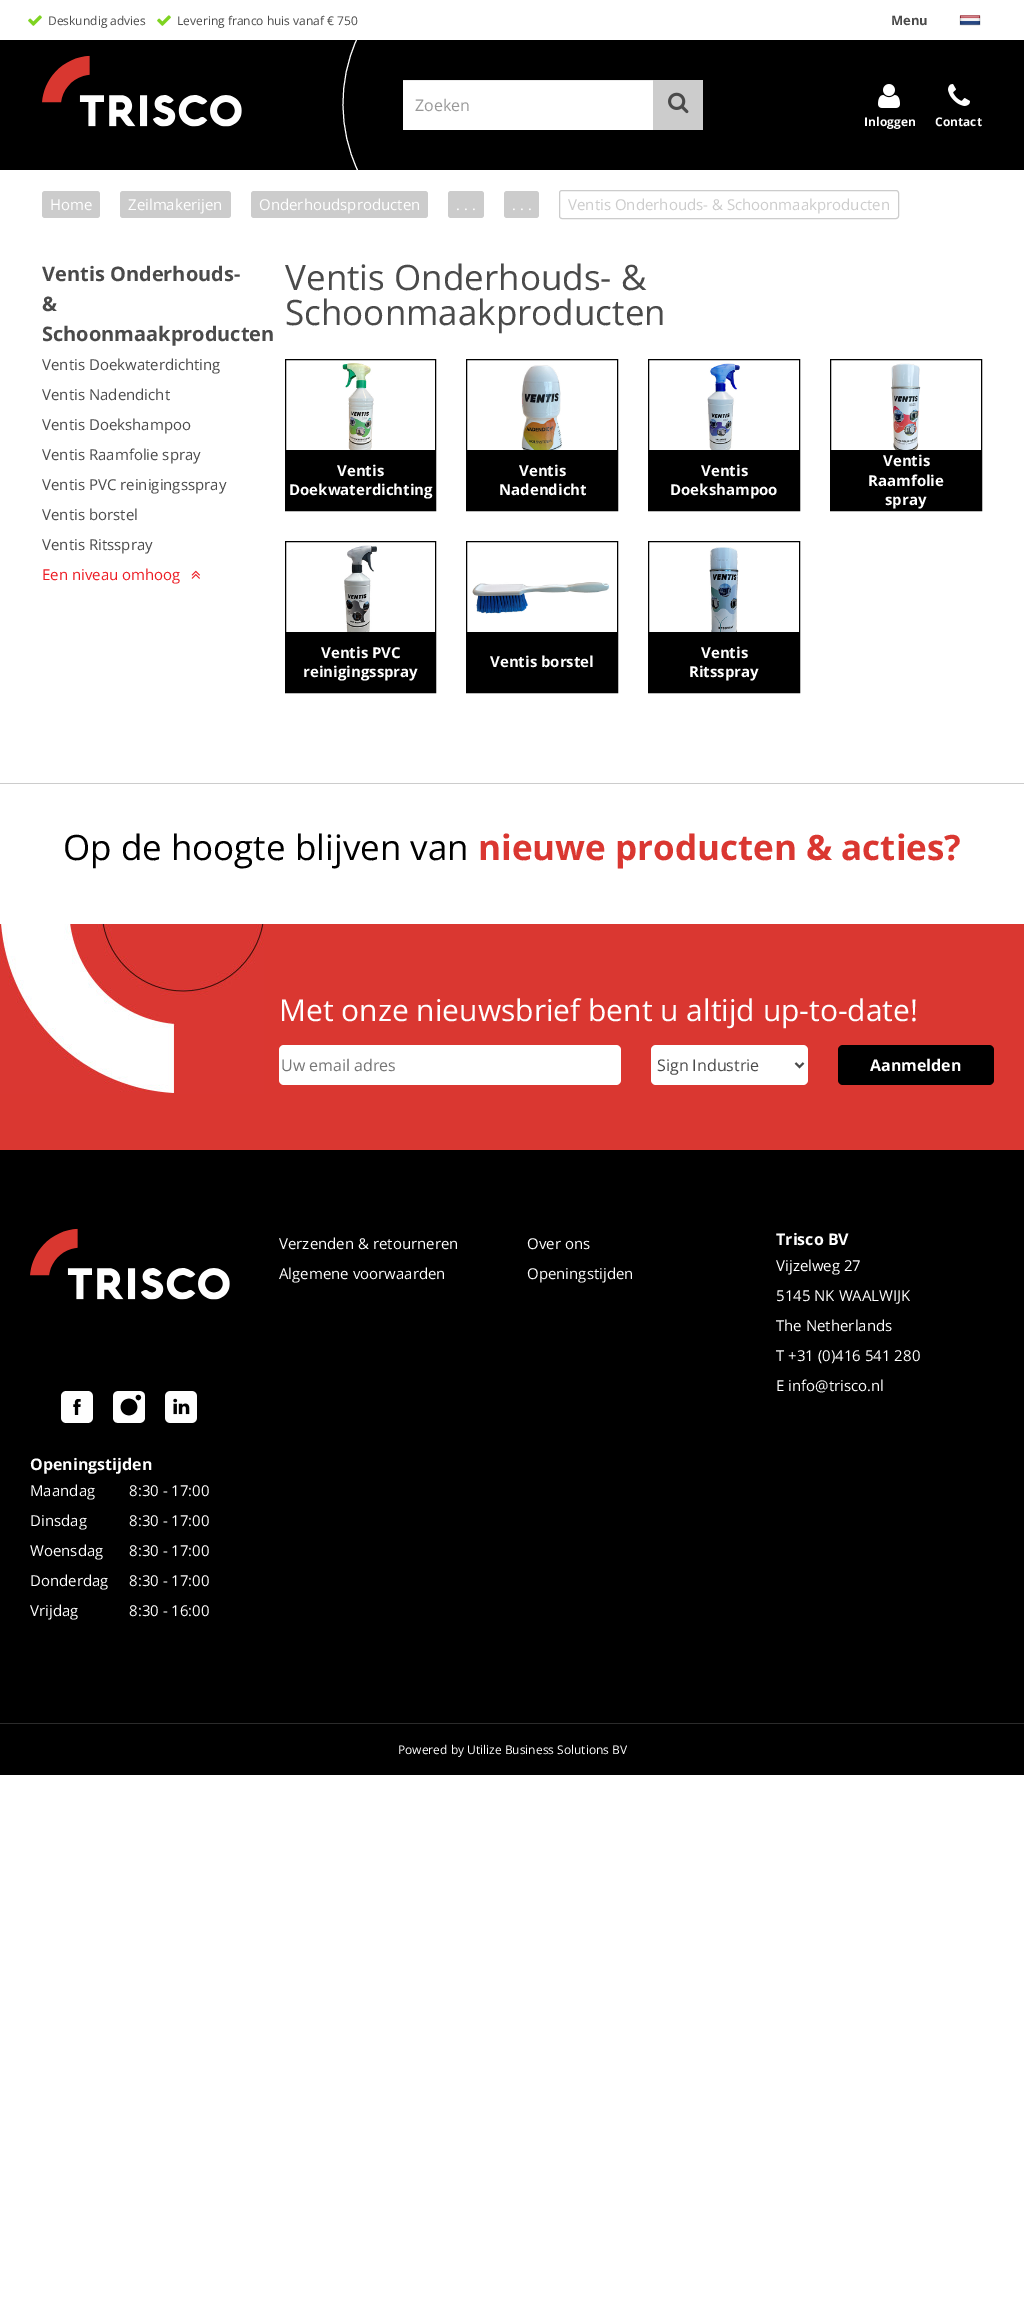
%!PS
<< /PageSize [1024 2317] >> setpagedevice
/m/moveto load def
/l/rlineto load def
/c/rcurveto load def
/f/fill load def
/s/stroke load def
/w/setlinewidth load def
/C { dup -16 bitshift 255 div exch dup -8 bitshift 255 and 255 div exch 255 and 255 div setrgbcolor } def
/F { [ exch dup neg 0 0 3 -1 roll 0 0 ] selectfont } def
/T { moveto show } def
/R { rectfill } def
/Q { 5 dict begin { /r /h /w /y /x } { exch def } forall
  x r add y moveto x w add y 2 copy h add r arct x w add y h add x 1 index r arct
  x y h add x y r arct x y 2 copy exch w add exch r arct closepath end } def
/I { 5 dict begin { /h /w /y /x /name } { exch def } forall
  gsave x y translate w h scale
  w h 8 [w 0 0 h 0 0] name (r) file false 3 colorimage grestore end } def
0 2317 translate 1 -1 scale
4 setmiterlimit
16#FFFFFF C
0 0 1024 2317 R
(1.rgb) 28 15 14 11 I
/OpenSans-Regular 12 F
16#4A4A4A C
(Deskundig advies) 48 25 T
(1.rgb) 157 15 14 11 I
(Levering franco huis vanaf € 750) 177 25 T
/OpenSans-Bold 13 F
(Menu) 891 25 T
(2.rgb) 959 15 22 11 I
16#000000 C
0 40 1024 130 R
(3.rgb) 42 55 200 72 I
16#FEFEFE C
356.5 40 m -18.5 41 -18 89.5 1 130 c s
16#CCCCCC C
653 80 50 50 R
16#FFFFFF C
403 81 250 49 R
16#ECECEC C
403 80 250 1 R
/OpenSans-Regular 16 F
16#999999 C
(Zoeken) 415 111 T
(4.rgb) 668 92 21 22 I
(5.rgb) 878 84 22 24 I
/OpenSans-Bold 12 F
16#FFFFFF C
(Inloggen) 864 126 T
(6.rgb) 948 84 22 22 I
(Contact) 935 126 T
16#CCCCCC C
42 191 58 27 3 Q f
/OpenSans-Regular 15 F
16#FFFFFF C
(Home) 50 210 T
16#CCCCCC C
120 191 111 27 3 Q f
16#FFFFFF C
(Zeilmakerijen) 128 210 T
16#CCCCCC C
251 191 177 27 3 Q f
16#FFFFFF C
(Onderhoudsproducten) 259 210 T
16#CCCCCC C
448 191 36 27 3 Q f
16#FFFFFF C
(. . .) 456 210 T
16#CCCCCC C
504 191 35 27 3 Q f
16#FFFFFF C
(. . .) 512 210 T
16#CCCCCC C
559.5 190.5 339 28 2.5 Q s
(Ventis Onderhouds- & Schoonmaakproducten) 568 210 T
/OpenSans-Bold 20 F
16#4A4A4A C
(Ventis Onderhouds-) 42 281 T
(&) 42 311 T
(Schoonmaakproducten) 42 341 T
/OpenSans-Regular 15 F
(Ventis Doekwaterdichting) 42 370 T
(Ventis Nadendicht) 42 400 T
(Ventis Doekshampoo) 42 430 T
(Ventis Raamfolie spray) 42 460 T
(Ventis PVC reinigingsspray) 42 490 T
(Ventis borstel) 42 520 T
(Ventis Ritsspray) 42 550 T
16#ED1C24 C
(Een niveau omhoog) 42 580 T
(7.rgb) 191 570 9 9 I
/OpenSans-Regular 35 F
16#4A4A4A C
(Ventis Onderhouds- &) 285 290 T
(Schoonmaakproducten) 285 325 T
(8.rgb) 342 363 32 87 I
16#000000 C
285.5 359.5 150 151 rectstroke
286 450 149 60 R
/OpenSans-Bold 15 F
16#FFFFFF C
(Ventis) 337 476 T
(Doekwaterdichting) 289 495 T
(9.rgb) 521 365 41 85 I
16#000000 C
466.5 359.5 151 151 rectstroke
467 450 150 60 R
16#FFFFFF C
(Ventis) 519 476 T
(Nadendicht) 499 495 T
(10.rgb) 707 363 33 87 I
16#000000 C
648.5 359.5 151 151 rectstroke
649 450 150 60 R
16#FFFFFF C
(Ventis) 701 476 T
(Doekshampoo) 670 495 T
(11.rgb) 891 363 30 87 I
16#000000 C
830.5 359.5 151 151 rectstroke
831 450 150 60 R
16#FFFFFF C
(Ventis) 883 466 T
(Raamfolie) 868 486 T
(spray) 885 505 T
(12.rgb) 344 545 33 87 I
16#000000 C
285.5 541.5 150 151 rectstroke
286 632 149 60 R
16#FFFFFF C
(Ventis PVC) 321 658 T
(reinigingsspray) 303 677 T
(13.rgb) 472 582 138 32 I
16#000000 C
466.5 541.5 151 151 rectstroke
467 632 150 60 R
16#FFFFFF C
(Ventis borstel) 490 667 T
(14.rgb) 709 547 30 85 I
16#000000 C
648.5 541.5 151 151 rectstroke
649 632 150 60 R
16#FFFFFF C
(Ventis) 701 658 T
(Ritsspray) 689 677 T
16#000000 C
0 1150 1024 573 R
16#CCCCCC C
0 783 1024 1 R
/OpenSans-Regular 35 F
16#000000 C
(Op de hoogte blijven van) 63 860 T
/OpenSans-Bold 35 F
16#DA3731 C
(nieuwe producten & acties?) 478 860 T
0 924 1024 226 R
(15.rgb) 0 924 264 170 I
/OpenSans-Regular 30 F
16#FFFFFF C
(Met onze nieuwsbrief bent u altijd up-to-date!) 279 1021 T
279 1045 342 40 5 Q f
/OpenSans-Regular 16 F
16#757575 C
(Uw email adres) 281 1071 T
16#FFFFFF C
651 1045 157 40 5 Q f
16#4A4A4A C
2 w
795.5 1063 m 4 4 l 4 -4 l s
(Sign Industrie) 657 1071 T
16#000000 C
838 1045 156 40 5 Q f
/OpenSans-Bold 16 F
16#FFFFFF C
(Aanmelden) 870 1071 T
(16.rgb) 30 1228 200 72 I
(17.rgb) 61 1391 32 32 I
(18.rgb) 113 1391 32 32 I
(19.rgb) 165 1391 32 32 I
/OpenSans-Regular 15 F
(Verzenden & retourneren) 279 1249 T
(Algemene voorwaarden) 279 1279 T
(Over ons) 527 1249 T
(Openingstijden) 527 1279 T
/OpenSans-Bold 16 F
(Trisco BV) 776 1245 T
/OpenSans-Regular 15 F
(Vijzelweg 27) 776 1271 T
(5145 NK WAALWIJK) 776 1301 T
(The Netherlands) 776 1331 T
(T +31 \(0\)416 541 280) 776 1361 T
(E info@trisco.nl) 776 1391 T
/OpenSans-Bold 16 F
(Openingstijden) 30 1470 T
/OpenSans-Regular 15 F
(Maandag) 30 1496 T
(8:30 - 17:00) 129 1496 T
(Dinsdag) 30 1526 T
(8:30 - 17:00) 129 1526 T
(Woensdag) 30 1556 T
(8:30 - 17:00) 129 1556 T
(Donderdag) 30 1586 T
(8:30 - 17:00) 129 1586 T
(Vrijdag) 30 1616 T
(8:30 - 16:00) 129 1616 T
16#000000 C
0 1724 1024 51 R
16#2B2B2B C
0 1723 1024 1 R
/OpenSans-Regular 12 F
16#FFFFFF C
(Powered by Utilize Business Solutions BV) 398 1754 T
showpage
